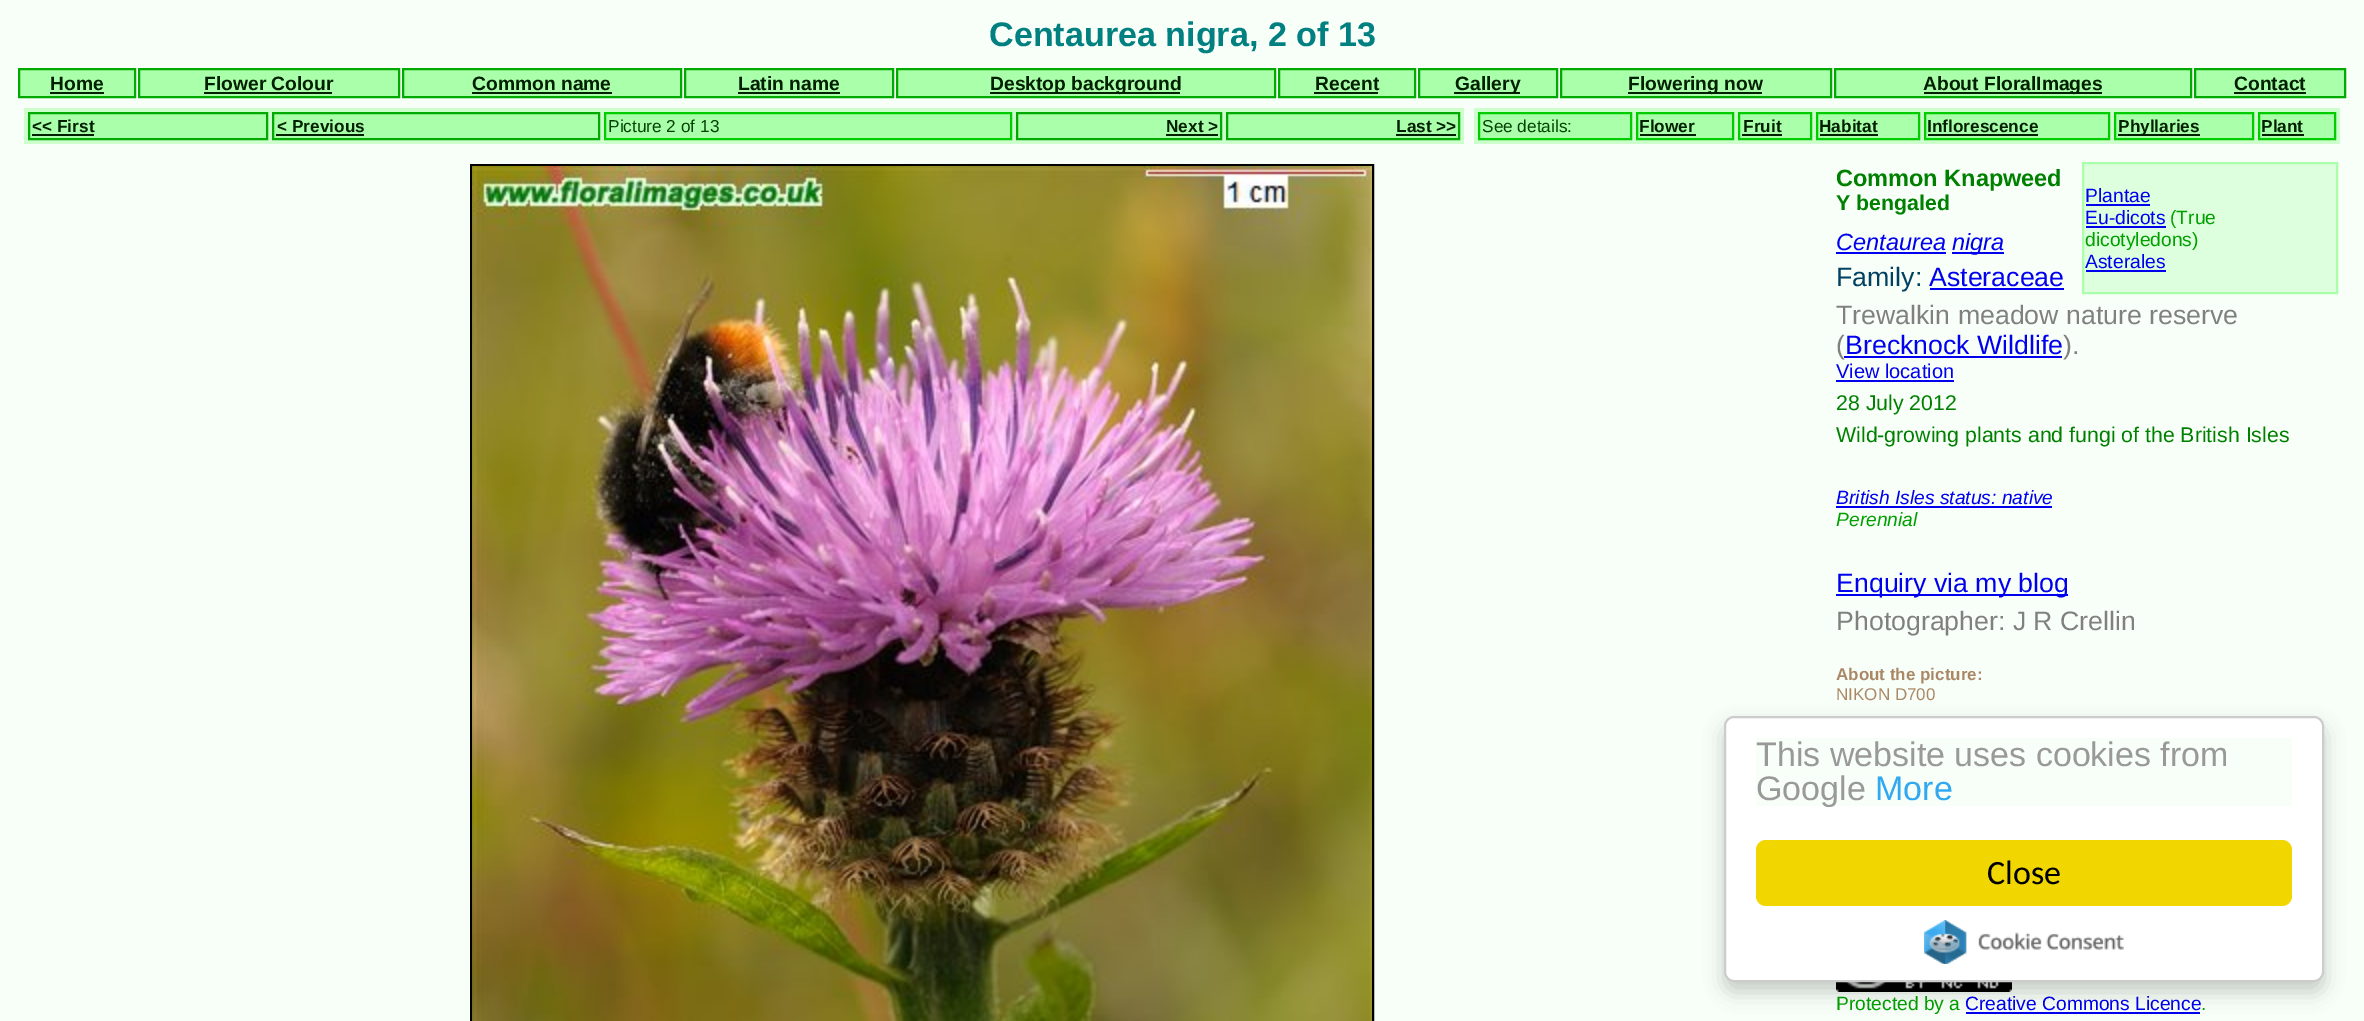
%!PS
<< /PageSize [2364 1021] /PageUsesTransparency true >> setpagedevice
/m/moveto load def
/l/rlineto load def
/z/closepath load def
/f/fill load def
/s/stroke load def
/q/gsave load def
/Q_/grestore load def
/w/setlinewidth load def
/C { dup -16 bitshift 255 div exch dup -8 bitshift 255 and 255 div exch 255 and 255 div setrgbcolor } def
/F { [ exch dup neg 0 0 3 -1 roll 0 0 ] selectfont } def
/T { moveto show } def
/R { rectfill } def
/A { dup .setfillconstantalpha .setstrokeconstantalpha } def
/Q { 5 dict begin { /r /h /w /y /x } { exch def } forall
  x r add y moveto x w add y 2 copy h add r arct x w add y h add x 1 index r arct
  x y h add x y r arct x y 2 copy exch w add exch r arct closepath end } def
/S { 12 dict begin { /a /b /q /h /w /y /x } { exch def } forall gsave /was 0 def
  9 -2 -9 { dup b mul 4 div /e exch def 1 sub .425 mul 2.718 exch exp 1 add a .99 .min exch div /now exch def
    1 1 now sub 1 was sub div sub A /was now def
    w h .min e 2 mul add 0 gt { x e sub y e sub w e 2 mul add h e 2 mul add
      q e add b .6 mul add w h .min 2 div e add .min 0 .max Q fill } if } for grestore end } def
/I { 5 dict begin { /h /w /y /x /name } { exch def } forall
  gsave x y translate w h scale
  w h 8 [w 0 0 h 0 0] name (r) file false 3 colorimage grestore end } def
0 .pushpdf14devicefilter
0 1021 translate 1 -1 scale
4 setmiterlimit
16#F8FFF8 C
0 0 2364 1021 R
/LiberationSans-Bold 34.1 F
16#008080 C
(Centaurea nigra, 2 of 13) 989 46 T
16#AAFFAA C
19 69 m 116 0 l 0 28 l -116 0 l z q f Q_
16#00AA00 C
2 w
s
/LiberationSans-Bold 19.25 F
16#002000 C
(Home) 50 90 T
50 92 54 2 R
16#AAFFAA C
139 69 m 260 0 l 0 28 l -260 0 l z q f Q_
16#00AA00 C
s
16#002000 C
(Flower Colour) 204 90 T
204 92 128 2 R
16#AAFFAA C
403 69 m 278 0 l 0 28 l -278 0 l z q f Q_
16#00AA00 C
s
16#002000 C
(Common name) 472 90 T
472 92 140 2 R
16#AAFFAA C
685 69 m 208 0 l 0 28 l -208 0 l z q f Q_
16#00AA00 C
s
16#002000 C
(Latin name) 738 90 T
738 92 102 2 R
16#AAFFAA C
897 69 m 378 0 l 0 28 l -378 0 l z q f Q_
16#00AA00 C
s
16#002000 C
990 92 190 2 R
(Desktop background) 990 90 T
16#AAFFAA C
1279 69 m 136 0 l 0 28 l -136 0 l z q f Q_
16#00AA00 C
s
16#002000 C
(Recent) 1315 90 T
1314 92 64 2 R
16#AAFFAA C
1419 69 m 138 0 l 0 28 l -138 0 l z q f Q_
16#00AA00 C
s
16#002000 C
1454 92 66 2 R
(Gallery) 1455 90 T
16#AAFFAA C
1561 69 m 270 0 l 0 28 l -270 0 l z q f Q_
16#00AA00 C
s
16#002000 C
1628 92 134 2 R
(Flowering now) 1628 90 T
16#AAFFAA C
1835 69 m 356 0 l 0 28 l -356 0 l z q f Q_
16#00AA00 C
s
16#002000 C
1924 92 178 2 R
(About FloralImages) 1923 90 T
16#AAFFAA C
2195 69 m 150 0 l 0 28 l -150 0 l z q f Q_
16#00AA00 C
s
16#002000 C
(Contact) 2234 90 T
2234 92 72 2 R
16#CCFFCC C
24 108 1440 36 R
16#AAFFAA C
29 113 m 238 0 l 0 26 l -238 0 l z q f Q_
16#00AA00 C
s
/LiberationSans-Bold 17.25 F
16#002000 C
(<< First) 32 132 T
32 134 62 2 R
16#AAFFAA C
273 113 m 326 0 l 0 26 l -326 0 l z q f Q_
16#00AA00 C
s
16#002000 C
(< Previous) 277 132 T
276 134 88 2 R
16#AAFFAA C
605 113 m 406 0 l 0 26 l -406 0 l z q f Q_
16#00CC00 C
s
/LiberationSans-Regular 17.25 F
16#004000 C
(Picture 2 of 13) 608 132 T
16#AAFFAA C
1017 113 m 204 0 l 0 26 l -204 0 l z q f Q_
16#00AA00 C
s
/LiberationSans-Bold 17.25 F
16#002000 C
(Next >) 1166 132 T
1166 134 52 2 R
16#AAFFAA C
1227 113 m 232 0 l 0 26 l -232 0 l z q f Q_
16#00AA00 C
s
16#002000 C
(Last >>) 1396 132 T
1396 134 60 2 R
16#CCFFCC C
1474 108 866 36 R
16#AAFFAA C
1479 113 m 152 0 l 0 26 l -152 0 l z q f Q_
16#00CC00 C
s
/LiberationSans-Regular 17.25 F
16#004000 C
(See details:) 1482 132 T
16#AAFFAA C
1637 113 m 96 0 l 0 26 l -96 0 l z q f Q_
16#00CC00 C
s
/LiberationSans-Bold 17.25 F
16#002000 C
(Flower) 1639 132 T
1640 134 56 2 R
16#AAFFAA C
1739 113 m 72 0 l 0 26 l -72 0 l z q f Q_
16#00CC00 C
s
16#002000 C
(Fruit) 1743 132 T
1742 134 40 2 R
16#AAFFAA C
1817 113 m 102 0 l 0 26 l -102 0 l z q f Q_
16#00CC00 C
s
16#002000 C
(Habitat) 1819 132 T
1820 134 58 2 R
16#AAFFAA C
1925 113 m 184 0 l 0 26 l -184 0 l z q f Q_
16#00CC00 C
s
16#002000 C
(Inflorescence) 1927 132 T
1928 134 110 2 R
16#AAFFAA C
2115 113 m 138 0 l 0 26 l -138 0 l z q f Q_
16#00CC00 C
s
16#002000 C
2118 134 82 2 R
(Phyllaries) 2118 132 T
16#AAFFAA C
2259 113 m 76 0 l 0 26 l -76 0 l z q f Q_
16#00CC00 C
s
16#002000 C
(Plant) 2261 132 T
2262 134 42 2 R
16#000000 C
471 165 902 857 rectstroke
(1.rgb) 472 166 900 855 I
/LiberationSans-Bold 23.5 F
16#008000 C
(Common Knapweed) 1836 186 T
/LiberationSans-Bold 21.3 F
(Y bengaled) 1836 210 T
16#DDFFDD C
2083 163 m 254 0 l 0 130 l -254 0 l z q f Q_
16#AAFFAA C
s
/LiberationSans-Regular 19.25 F
16#0000EE C
(Plantae) 2085 202 T
2086 204 64 2 R
(Eu-dicots) 2085 224 T
2086 226 80 2 R
16#00A000 C
(\(True) 2170 224 T
(dicotyledons\)) 2085 246 T
16#0000EE C
(Asterales) 2085 268 T
2086 270 80 2 R
/LiberationSans-Italic 23.5 F
(Centaurea) 1836 250 T
1836 252 110 2 R
1952 252 52 2 R
(nigra) 1952 250 T
/LiberationSans-Regular 26.7 F
16#004060 C
(Family:) 1836 286 T
16#0000EE C
(Asteraceae) 1929 286 T
1930 288 134 2 R
16#808080 C
(Trewalkin meadow nature reserve) 1836 324 T
(\() 1836 354 T
16#0000EE C
(Brecknock Wildlife) 1845 354 T
1844 356 218 2 R
16#808080 C
(\).) 2063 354 T
/LiberationSans-Regular 20 F
16#0000EE C
(View location) 1836 378 T
1836 380 118 2 R
/LiberationSans-Regular 21.3 F
16#008000 C
(28 July 2012) 1836 410 T
(Wild-growing plants and fungi of the British Isles) 1836 442 T
/LiberationSans-Italic 19.25 F
16#0000EE C
(British Isles status: native) 1836 504 T
1836 506 216 2 R
16#00A000 C
(Perennial) 1836 526 T
16#0000EE C
1836 594 232 2 R
/LiberationSans-Regular 26.7 F
(Enquiry via my blog) 1836 592 T
16#808080 C
(Photographer: J R Crellin) 1836 630 T
/LiberationSans-Bold 17 F
16#AA8866 C
(About the picture:) 1836 680 T
/LiberationSans-Regular 17 F
(NIKON D700) 1836 700 T
(2.rgb) 1836 982 176 10 I
/LiberationSans-Regular 19.25 F
16#00A000 C
(Protected by a) 1836 1010 T
16#0000EE C
(Creative Commons Licence) 1965 1010 T
1966 1012 234 2 R
16#00A000 C
(.) 2201 1010 T
16#000000 C
1724 726 600 266 10 10 .2 S
16#FFFFFF C
1725 717 598 264 9 Q q f Q_
16#CCCCCC C
s
16#F8FFF8 C
1756 738 536 68 R
/LiberationSans-Regular 34 F
16#999999 C
(This website uses cookies from) 1756 766 T
(Google) 1756 800 T
16#31A8F0 C
(More) 1875 800 T
16#F1D600 C
1756 840 536 66 10 Q f
/Carlito-Regular 34 F
16#000000 C
(Close) 1987 884 T
(3.rgb) 1924 920 200 44 I
.poppdf14devicefilter showpage
